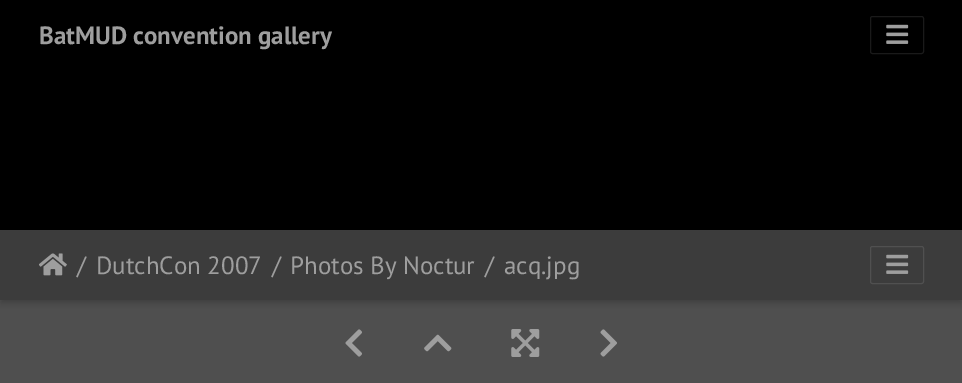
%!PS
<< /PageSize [962 383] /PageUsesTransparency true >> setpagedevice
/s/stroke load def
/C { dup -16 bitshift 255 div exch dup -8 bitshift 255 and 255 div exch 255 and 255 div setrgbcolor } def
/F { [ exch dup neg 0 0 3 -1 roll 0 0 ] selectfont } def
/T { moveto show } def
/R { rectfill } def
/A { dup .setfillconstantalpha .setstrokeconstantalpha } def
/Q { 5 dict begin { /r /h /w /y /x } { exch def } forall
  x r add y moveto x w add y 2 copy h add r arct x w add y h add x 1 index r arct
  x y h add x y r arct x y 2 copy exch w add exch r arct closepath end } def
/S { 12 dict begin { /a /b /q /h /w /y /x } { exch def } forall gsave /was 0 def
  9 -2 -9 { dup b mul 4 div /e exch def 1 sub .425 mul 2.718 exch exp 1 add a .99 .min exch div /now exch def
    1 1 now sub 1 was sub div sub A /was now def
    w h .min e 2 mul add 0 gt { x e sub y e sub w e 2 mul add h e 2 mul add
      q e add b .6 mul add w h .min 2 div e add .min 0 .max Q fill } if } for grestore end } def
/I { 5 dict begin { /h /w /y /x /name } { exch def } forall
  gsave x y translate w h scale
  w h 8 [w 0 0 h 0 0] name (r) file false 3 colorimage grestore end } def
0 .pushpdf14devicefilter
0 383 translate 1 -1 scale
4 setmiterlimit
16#4F4F4F C
0 0 962 383 R
16#000000 C
0 0 962 230 R
/PTSans-Bold 25 F
16#9E9E9E C
(BatMUD convention gallery) 39 44 T
16#1A1A1A C
870.5 16.5 53 37 2 Q s
(1.rgb) 886 24 23 20 I
16#000000 C
1 235 960 68 0 3 .2 S
16#3C3C3C C
0 230 962 70 R
(2.rgb) 39 253 28 23 I
/PTSans-Regular 25 F
16#9E9E9E C
(/) 77 274 T
(DutchCon 2007) 96 274 T
(/) 272 274 T
(Photos By Noctur) 290 274 T
(/) 485 274 T
(acq.jpg) 504 274 T
16#505050 C
870.5 246.5 53 37 2 Q s
(3.rgb) 886 254 23 20 I
(4.rgb) 345 329 17 28 I
(5.rgb) 424 334 28 18 I
(6.rgb) 511 329 29 28 I
(7.rgb) 600 329 17 28 I
.poppdf14devicefilter showpage
